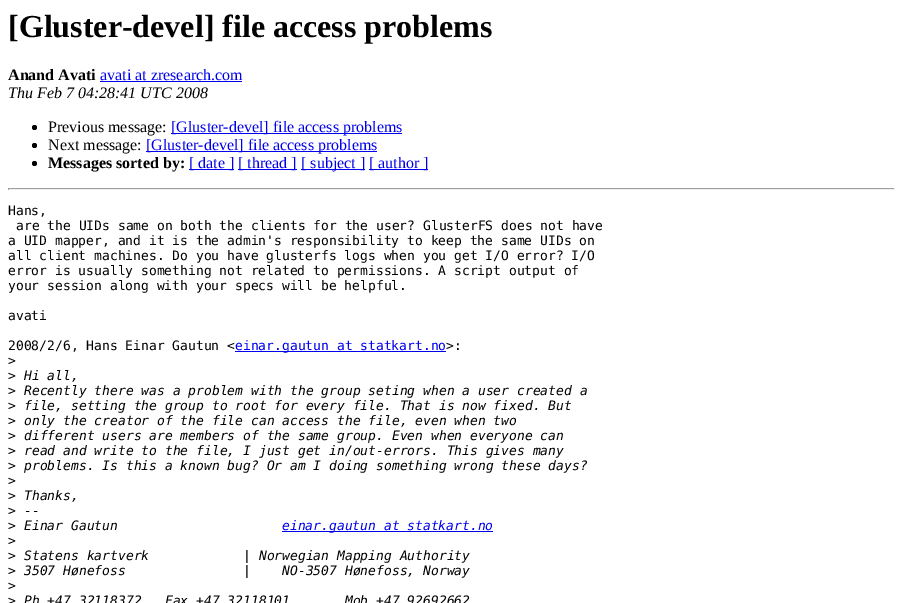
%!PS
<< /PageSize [903 603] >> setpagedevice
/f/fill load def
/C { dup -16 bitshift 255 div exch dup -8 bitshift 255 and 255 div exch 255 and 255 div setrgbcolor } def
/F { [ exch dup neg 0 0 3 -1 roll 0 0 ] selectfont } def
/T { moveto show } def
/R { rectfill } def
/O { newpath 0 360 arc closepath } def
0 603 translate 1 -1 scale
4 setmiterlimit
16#FFFFFF C
0 0 903 603 R
/LiberationSerif-Bold 32 F
16#000000 C
([Gluster-devel] file access problems) 8 37 T
/LiberationSerif-Bold 16 F
(Anand Avati) 8 80 T
/LiberationSerif-Regular 16 F
16#0000EE C
(avati at zresearch.com) 100 80 T
100 81 142 1 R
/LiberationSerif-Italic 16 F
16#000000 C
(Thu Feb 7 04:28:41 UTC 2008) 8 98 T
34.5 127.5 2.5 O f
/LiberationSerif-Regular 16 F
(Previous message:) 48 132 T
16#0000EE C
171 133 231 1 R
([Gluster-devel] file access problems) 171 132 T
16#000000 C
34.5 145.5 2.5 O f
(Next message:) 48 150 T
16#0000EE C
146 151 231 1 R
([Gluster-devel] file access problems) 146 150 T
16#000000 C
34.5 163.5 2.5 O f
/LiberationSerif-Bold 16 F
(Messages sorted by:) 48 168 T
16#0000EE C
189 169 45 1 R
/LiberationSerif-Regular 16 F
([ date ]) 189 168 T
238 169 59 1 R
([ thread ]) 238 168 T
301 169 64 1 R
([ subject ]) 301 168 T
369 169 59 1 R
([ author ]) 369 168 T
16#9F9F9F C
8 188 887 1 R
16#EEEEEE C
894 188 1 2 R
8 189 887 1 R
16#9F9F9F C
8 188 1 2 R
/DejaVuSansMono-Regular 13 F
16#000000 C
(Hans,) 8 215 T
(are the UIDs same on both the clients for the user? GlusterFS does not have) 16 230 T
(a UID mapper, and it is the admin's responsibility to keep the same UIDs on) 8 245 T
(all client machines. Do you have glusterfs logs when you get I/O error? I/O) 8 260 T
(error is usually something not related to permissions. A script output of) 8 275 T
(your session along with your specs will be helpful.) 8 290 T
(avati) 8 320 T
(2008/2/6, Hans Einar Gautun <) 8 350 T
16#0000EE C
235 351 211 1 R
(einar.gautun at statkart.no) 235 350 T
16#000000 C
(>:) 446 350 T
(>) 8 365 T
(>) 8 380 T
/DejaVuSansMono-Italic 13 F
(Hi all,) 24 380 T
/DejaVuSansMono-Regular 13 F
(>) 8 395 T
/DejaVuSansMono-Italic 13 F
(Recently there was a problem with the group seting when a user created a) 24 395 T
/DejaVuSansMono-Regular 13 F
(>) 8 410 T
/DejaVuSansMono-Italic 13 F
(file, setting the group to root for every file. That is now fixed. But) 24 410 T
/DejaVuSansMono-Regular 13 F
(>) 8 425 T
/DejaVuSansMono-Italic 13 F
(only the creator of the file can access the file, even when two) 24 425 T
/DejaVuSansMono-Regular 13 F
(>) 8 440 T
/DejaVuSansMono-Italic 13 F
(different users are members of the same group. Even when everyone can) 24 440 T
/DejaVuSansMono-Regular 13 F
(>) 8 455 T
/DejaVuSansMono-Italic 13 F
(read and write to the file, I just get in/out-errors. This gives many) 24 455 T
/DejaVuSansMono-Regular 13 F
(>) 8 470 T
/DejaVuSansMono-Italic 13 F
(problems. Is this a known bug? Or am I doing something wrong these days?) 24 470 T
/DejaVuSansMono-Regular 13 F
(>) 8 485 T
(>) 8 500 T
/DejaVuSansMono-Italic 13 F
(Thanks,) 24 500 T
/DejaVuSansMono-Regular 13 F
(>) 8 515 T
/DejaVuSansMono-Italic 13 F
(--) 24 515 T
/DejaVuSansMono-Regular 13 F
(>) 8 530 T
/DejaVuSansMono-Italic 13 F
(Einar Gautun) 24 530 T
16#0000EE C
282 531 211 1 R
(einar.gautun at statkart.no) 282 530 T
/DejaVuSansMono-Regular 13 F
16#000000 C
(>) 8 545 T
(>) 8 560 T
/DejaVuSansMono-Italic 13 F
(Statens kartverk            | Norwegian Mapping Authority) 24 560 T
/DejaVuSansMono-Regular 13 F
(>) 8 575 T
/DejaVuSansMono-Italic 13 F
(3507 Hønefoss               |    NO-3507 Hønefoss, Norway) 24 575 T
/DejaVuSansMono-Regular 13 F
(>) 8 590 T
(>) 8 605 T
/DejaVuSansMono-Italic 13 F
(Ph +47 32118372   Fax +47 32118101       Mob +47 92692662) 24 605 T
showpage
